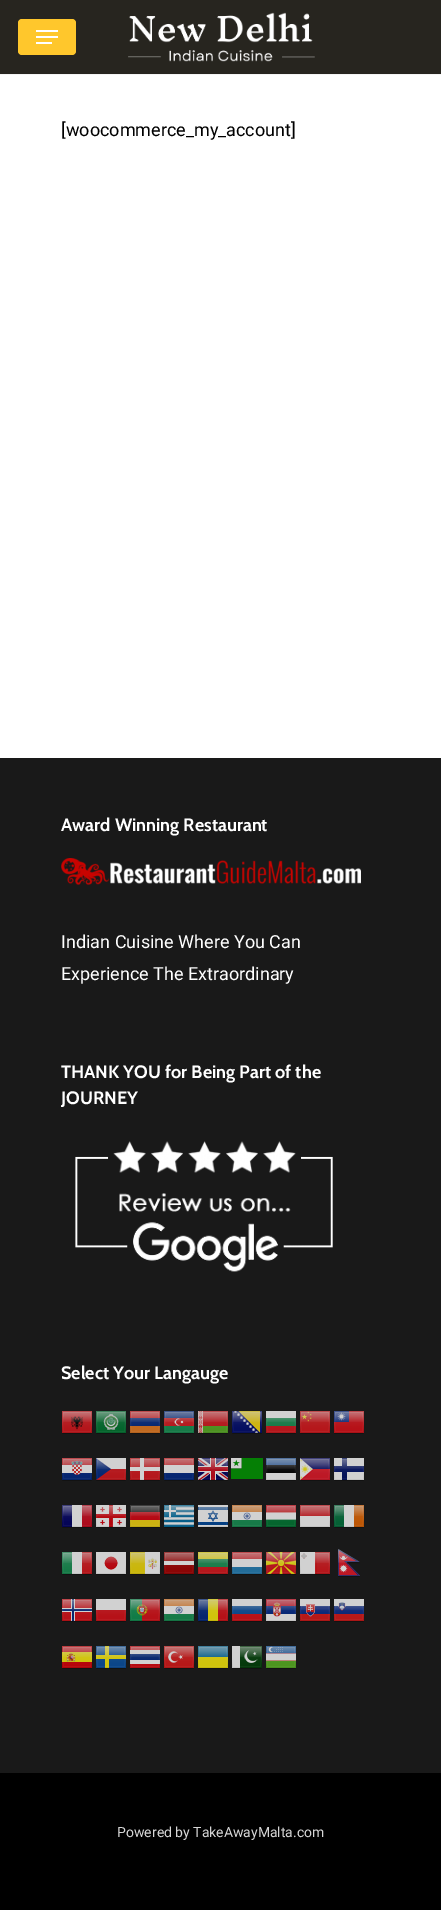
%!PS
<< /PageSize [441 1910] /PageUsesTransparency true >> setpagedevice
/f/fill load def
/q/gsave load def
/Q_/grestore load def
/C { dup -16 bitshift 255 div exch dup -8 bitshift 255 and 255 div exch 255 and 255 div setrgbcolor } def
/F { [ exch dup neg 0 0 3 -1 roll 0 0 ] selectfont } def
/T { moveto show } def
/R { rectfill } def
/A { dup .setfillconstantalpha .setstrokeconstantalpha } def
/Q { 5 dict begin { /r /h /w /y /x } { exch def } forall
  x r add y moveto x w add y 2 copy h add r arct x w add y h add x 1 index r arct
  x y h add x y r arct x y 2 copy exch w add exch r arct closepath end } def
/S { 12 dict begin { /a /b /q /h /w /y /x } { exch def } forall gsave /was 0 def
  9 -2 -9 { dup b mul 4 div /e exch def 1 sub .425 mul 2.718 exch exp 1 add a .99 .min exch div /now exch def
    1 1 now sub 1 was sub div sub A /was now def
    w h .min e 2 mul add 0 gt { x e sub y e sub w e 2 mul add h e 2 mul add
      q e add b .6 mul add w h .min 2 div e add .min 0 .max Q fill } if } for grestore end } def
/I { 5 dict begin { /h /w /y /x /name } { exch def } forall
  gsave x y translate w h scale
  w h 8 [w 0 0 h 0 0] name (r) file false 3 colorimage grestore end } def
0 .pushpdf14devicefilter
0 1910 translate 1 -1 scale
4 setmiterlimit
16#FFFFFF C
0 0 441 1910 R
16#27251F C
0 0 441 74 R
q
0 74 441 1 rectclip
16#000000 C
0 0 441 74 0 1 .14 S
Q_
16#FFC72C C
18 19 58 36 4 Q f
16#FFFFFF C
36 30 22 2 R
36 42 16 2 R
36 36 22 2 R
(1.rgb) 128 12 187 50 I
/Roboto-Regular 18 F
16#000000 C
([woocommerce_my_account]) 61 136 T
16#191919 C
0 758 441 1015 R
/Cabin-Bold 18 F
16#FFFFFF C
(Award Winning Restaurant) 61 831 T
(2.rgb) 61 858 300 27 I
/Roboto-Regular 18 F
(Indian Cuisine Where You Can) 61 948 T
(Experience The Extraordinary) 61 980 T
/Cabin-Bold 18 F
(THANK YOU for Being Part of the) 61 1078 T
(JOURNEY) 61 1104 T
(3.rgb) 75 1141 258 131 I
(Select Your Langauge) 61 1379 T
(4.rgb) 62 1411 30 23 I
(5.rgb) 96 1411 30 23 I
(6.rgb) 130 1411 30 23 I
(7.rgb) 164 1411 30 23 I
(8.rgb) 198 1411 30 23 I
(9.rgb) 232 1411 30 23 I
(10.rgb) 266 1411 30 23 I
(11.rgb) 300 1411 30 23 I
(12.rgb) 334 1411 30 23 I
(13.rgb) 62 1458 30 23 I
(14.rgb) 96 1458 30 23 I
(15.rgb) 130 1458 30 23 I
(16.rgb) 164 1458 30 23 I
(17.rgb) 198 1458 30 23 I
(18.rgb) 231 1458 32 21 I
(19.rgb) 266 1458 30 23 I
(20.rgb) 300 1458 30 23 I
(21.rgb) 334 1458 30 23 I
(22.rgb) 62 1505 30 23 I
(23.rgb) 96 1505 30 23 I
(24.rgb) 130 1505 30 23 I
(25.rgb) 164 1505 30 23 I
(26.rgb) 198 1505 30 23 I
(27.rgb) 232 1505 30 23 I
(28.rgb) 266 1505 30 23 I
(29.rgb) 300 1505 30 23 I
(30.rgb) 334 1505 30 23 I
(31.rgb) 62 1552 30 23 I
(32.rgb) 96 1552 30 23 I
(33.rgb) 130 1552 30 23 I
(34.rgb) 164 1552 30 23 I
(35.rgb) 198 1552 30 23 I
(36.rgb) 232 1552 30 23 I
(37.rgb) 266 1552 30 23 I
(38.rgb) 300 1552 30 23 I
(39.rgb) 338 1549 22 28 I
(40.rgb) 62 1599 30 23 I
(41.rgb) 96 1599 30 23 I
(42.rgb) 130 1599 30 23 I
(27.rgb) 164 1599 30 23 I
(43.rgb) 198 1599 30 23 I
(44.rgb) 232 1599 30 23 I
(45.rgb) 266 1599 30 23 I
(46.rgb) 300 1599 30 23 I
(47.rgb) 334 1599 30 23 I
(48.rgb) 62 1646 30 23 I
(49.rgb) 96 1646 30 23 I
(50.rgb) 130 1646 30 23 I
(51.rgb) 164 1646 30 23 I
(52.rgb) 198 1646 30 23 I
(53.rgb) 232 1646 30 23 I
(54.rgb) 266 1646 30 23 I
16#000000 C
0 1773 441 137 R
/Roboto-Regular 14 F
16#D6D6D6 C
(Powered by TakeAwayMalta.com) 117 1837 T
.poppdf14devicefilter showpage
